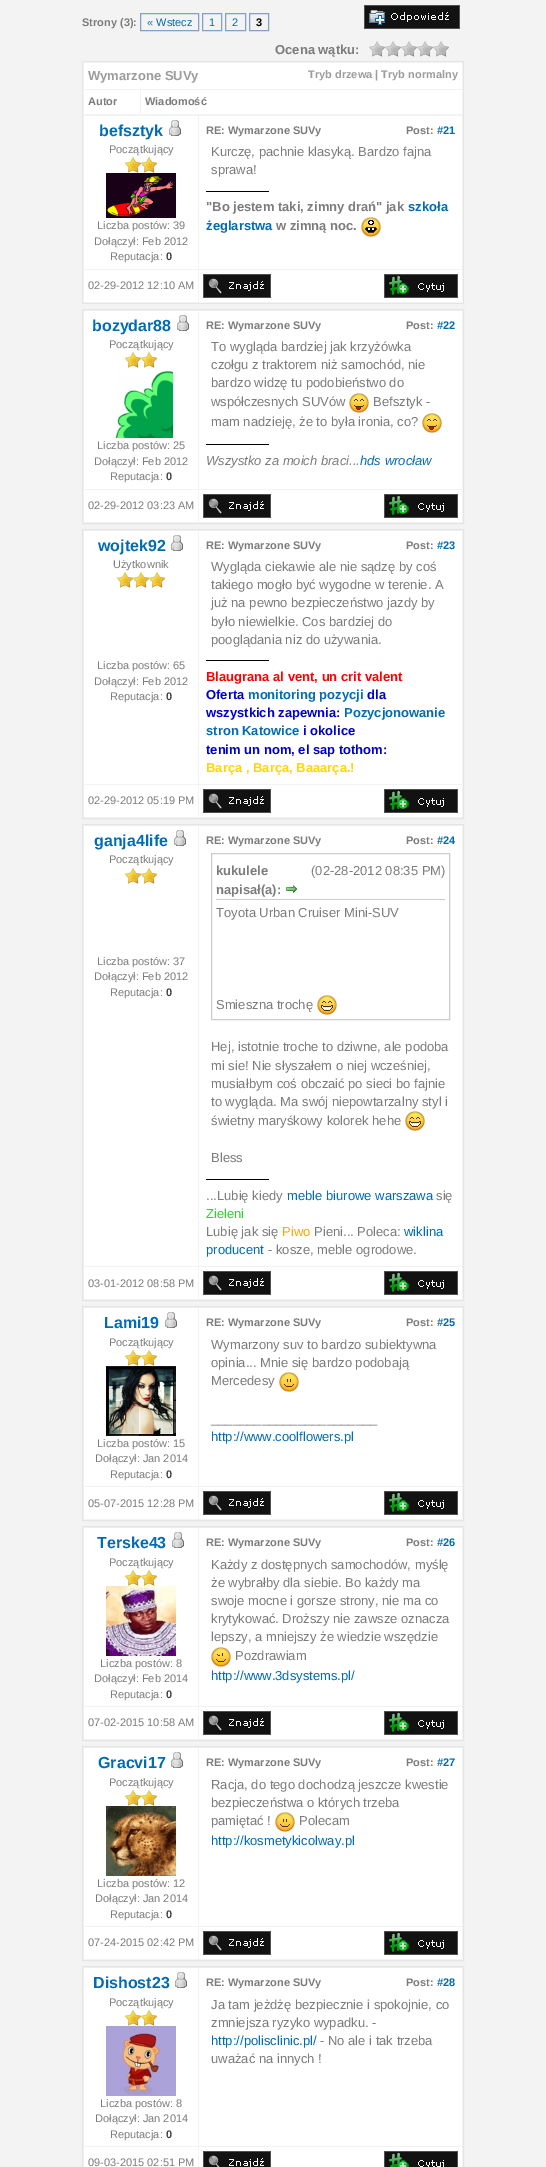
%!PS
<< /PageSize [546 2167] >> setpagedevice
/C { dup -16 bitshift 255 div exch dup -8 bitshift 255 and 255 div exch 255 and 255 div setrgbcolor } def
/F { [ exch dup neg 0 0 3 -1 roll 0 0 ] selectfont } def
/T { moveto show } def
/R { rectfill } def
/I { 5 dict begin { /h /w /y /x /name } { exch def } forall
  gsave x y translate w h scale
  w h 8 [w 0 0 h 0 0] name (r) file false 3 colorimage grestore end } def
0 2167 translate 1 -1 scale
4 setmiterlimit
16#F3F3F3 C
0 0 546 2167 R
/LiberationSans-Bold 11 F
16#7D7C7C C
(Strony \(3\):) 82 26 T
16#81A2C4 C
140.5 13.5 58 17 rectstroke
/LiberationSans-Regular 11 F
16#026CB1 C
(« Wstecz) 147 26 T
16#81A2C4 C
202.5 13.5 19 17 rectstroke
16#026CB1 C
(1) 209 26 T
16#81A2C4 C
225.5 13.5 20 17 rectstroke
16#026CB1 C
(2) 232 26 T
16#81A2C4 C
249.5 13.5 19 17 rectstroke
/LiberationSans-Bold 11 F
16#000000 C
(3) 256 26 T
(1.rgb) 364 5 96 24 I
/LiberationSans-Bold 13 F
16#7D7C7C C
(Ocena wątku:) 275 54 T
(2.rgb) 369 41 80 16 I
16#E5E5E5 C
82 61 382 1 R
463 61 1 243 R
82 61 1 54 R
16#FFFFFF C
84 63 378 26 R
16#9C9C9C C
(Wymarzone SUVy) 88 80 T
/LiberationSans-Bold 11 F
(Tryb drzewa | Tryb normalny) 308 78 T
16#FFFFFF C
84 90 56 24 R
16#7D7C7C C
(Autor) 88 105 T
16#FFFFFF C
141 90 321 24 R
16#7D7C7C C
(Wiadomość) 145 105 T
16#E5E5E5 C
82 303 382 1 R
82 115 1 189 R
16#FFFFFF C
84 116 114 153 R
/LiberationSans-Bold 16 F
16#026CB1 C
(befsztyk) 99 136 T
(3.rgb) 169 120 12 16 I
/LiberationSans-Regular 11 F
16#7D7C7C C
(Początkujący) 109 153 T
(4.rgb) 125 157 16 16 I
(4.rgb) 141 157 16 16 I
(5.rgb) 106 173 70 45 I
(Liczba postów: 39) 97 229 T
(Dołączył: Feb 2012) 94 245 T
(Reputacja:) 110 260 T
/LiberationSans-Bold 11 F
16#444444 C
(0) 166 260 T
16#FFFFFF C
199 116 263 153 R
16#7D7C7C C
(RE: Wymarzone SUVy) 206 134 T
(Post:) 406 134 T
16#026CB1 C
(#21) 437 134 T
/LiberationSans-Regular 13 F
16#7D7C7C C
(Kurczę, pachnie klasyką. Bardzo fajna) 211 156 T
(sprawa!) 211 174 T
16#000000 C
206 191 63 1 R
/LiberationSans-Bold 13 F
16#7D7C7C C
("Bo jestem taki, zimny drań" jak) 206 211 T
16#026CB1 C
(szkoła) 408 211 T
(żeglarstwa) 206 230 T
16#7D7C7C C
(w zimną noc.) 276 230 T
(6.rgb) 361 217 20 20 I
16#FFFFFF C
84 270 114 32 R
/LiberationSans-Regular 11 F
16#7D7C7C C
(02-29-2012 12:10 AM) 88 289 T
16#FFFFFF C
199 270 263 32 R
(7.rgb) 203 274 68 24 I
(8.rgb) 384 274 74 24 I
16#E5E5E5 C
82.5 309.5 381 214 rectstroke
16#FFFFFF C
84 311 114 178 R
/LiberationSans-Bold 16 F
16#026CB1 C
(bozydar88) 92 331 T
(3.rgb) 177 315 12 16 I
/LiberationSans-Regular 11 F
16#7D7C7C C
(Początkujący) 109 348 T
(4.rgb) 125 352 16 16 I
(4.rgb) 141 352 16 16 I
(9.rgb) 115 370 58 68 I
(Liczba postów: 25) 97 449 T
(Dołączył: Feb 2012) 94 465 T
(Reputacja:) 110 480 T
/LiberationSans-Bold 11 F
16#444444 C
(0) 166 480 T
16#FFFFFF C
199 311 263 178 R
16#7D7C7C C
(RE: Wymarzone SUVy) 206 329 T
(Post:) 406 329 T
16#026CB1 C
(#22) 437 329 T
/LiberationSans-Regular 13 F
16#7D7C7C C
(To wygląda bardziej jak krzyżówka) 211 351 T
(czołgu z traktorem niż samochód, nie) 211 369 T
(bardzo widzę tu podobieństwo do) 211 387 T
(współczesnych SUVów) 211 406 T
(10.rgb) 349 393 20 20 I
(Befsztyk -) 373 406 T
(mam nadzieję, że to była ironia, co?) 211 426 T
(10.rgb) 422 413 20 20 I
16#000000 C
206 444 63 1 R
/LiberationSans-Italic 13 F
16#7D7C7C C
(Wszystko za moich braci...) 206 465 T
16#026CB1 C
(hds wrocław) 360 465 T
16#FFFFFF C
84 490 114 32 R
/LiberationSans-Regular 11 F
16#7D7C7C C
(02-29-2012 03:23 AM) 88 509 T
16#FFFFFF C
199 490 263 32 R
(7.rgb) 203 494 68 24 I
(8.rgb) 384 494 74 24 I
16#E5E5E5 C
82.5 529.5 381 289 rectstroke
16#FFFFFF C
84 531 114 253 R
/LiberationSans-Bold 16 F
16#026CB1 C
(wojtek92) 98 551 T
(3.rgb) 171 535 12 16 I
/LiberationSans-Regular 11 F
16#7D7C7C C
(Użytkownik) 113 568 T
(4.rgb) 117 572 16 16 I
(4.rgb) 133 572 16 16 I
(4.rgb) 149 572 16 16 I
(Liczba postów: 65) 97 669 T
(Dołączył: Feb 2012) 94 685 T
(Reputacja:) 110 700 T
/LiberationSans-Bold 11 F
16#444444 C
(0) 166 700 T
16#FFFFFF C
199 531 263 253 R
16#7D7C7C C
(RE: Wymarzone SUVy) 206 549 T
(Post:) 406 549 T
16#026CB1 C
(#23) 437 549 T
/LiberationSans-Regular 13 F
16#7D7C7C C
(Wygląda ciekawie ale nie sądzę by coś) 211 571 T
(takiego mogło być wygodne w terenie. A) 211 589 T
(już na pewno bezpieczeństwo jazdy by) 211 607 T
(było niewielkie. Cos bardziej do) 211 626 T
(pooglądania niz do używania.) 211 644 T
16#000000 C
206 660 63 1 R
/LiberationSans-Bold 13 F
16#FF0000 C
(Blaugrana al vent, un crit valent) 206 681 T
16#0000CD C
(Oferta) 206 699 T
16#026CB1 C
(monitoring pozycji) 248 699 T
16#0000CD C
(dla) 367 699 T
(wszystkich zapewnia:) 206 717 T
16#026CB1 C
(Pozycjonowanie) 344 717 T
(stron Katowice) 206 735 T
16#0000CD C
(i okolice) 303 735 T
(tenim un nom, el sap tothom:) 206 754 T
16#FFD700 C
(Barça , Barça, Baaarça.!) 206 772 T
16#FFFFFF C
84 785 114 32 R
/LiberationSans-Regular 11 F
16#7D7C7C C
(02-29-2012 05:19 PM) 88 804 T
16#FFFFFF C
199 785 263 32 R
(7.rgb) 203 789 68 24 I
(8.rgb) 384 789 74 24 I
16#E5E5E5 C
82.5 824.5 381 476 rectstroke
16#FFFFFF C
84 826 114 440 R
/LiberationSans-Bold 16 F
16#026CB1 C
(ganja4life) 94 846 T
(3.rgb) 174 830 12 16 I
/LiberationSans-Regular 11 F
16#7D7C7C C
(Początkujący) 109 863 T
(4.rgb) 125 868 16 16 I
(4.rgb) 141 868 16 16 I
(Liczba postów: 37) 97 965 T
(Dołączył: Feb 2012) 94 980 T
(Reputacja:) 110 996 T
/LiberationSans-Bold 11 F
16#444444 C
(0) 166 996 T
16#FFFFFF C
199 826 263 440 R
16#7D7C7C C
(RE: Wymarzone SUVy) 206 844 T
(Post:) 406 844 T
16#026CB1 C
(#24) 437 844 T
16#CCCCCC C
211.5 853.5 238 166 rectstroke
216 899 229 1 R
/LiberationSans-Bold 13 F
16#7D7C7C C
(kukulele) 216 875 T
/LiberationSans-Regular 13 F
(\(02-28-2012 08:35 PM\)) 311 875 T
/LiberationSans-Bold 13 F
(napisał\(a\):) 216 894 T
(11.rgb) 286 885 11 8 I
/LiberationSans-Regular 13 F
(Toyota Urban Cruiser Mini-SUV) 216 917 T
(Smieszna trochę) 216 1009 T
(12.rgb) 317 995 20 20 I
(Hej, istotnie troche to dziwne, ale podoba) 211 1051 T
(mi sie! Nie słyszałem o niej wcześniej,) 211 1070 T
(musiałbym coś obczaić po sieci bo fajnie) 211 1088 T
(to wygląda. Ma swój niepowtarzalny styl i) 211 1106 T
(świetny maryśkowy kolorek hehe) 211 1125 T
(12.rgb) 405 1111 20 20 I
(Bless) 211 1162 T
16#000000 C
206 1179 63 1 R
16#7D7C7C C
(...Lubię kiedy) 206 1200 T
16#026CB1 C
(meble biurowe warszawa) 287 1200 T
16#7D7C7C C
(się) 436 1200 T
16#32CD32 C
(Zieleni) 206 1218 T
16#7D7C7C C
(Lubię jak się) 206 1236 T
16#FFA500 C
(Piwo) 282 1236 T
16#7D7C7C C
(Pieni... Poleca:) 314 1236 T
16#026CB1 C
(wiklina) 404 1236 T
(producent) 206 1254 T
16#7D7C7C C
(- kosze, meble ogrodowe.) 268 1254 T
16#FFFFFF C
84 1267 114 32 R
/LiberationSans-Regular 11 F
16#7D7C7C C
(03-01-2012 08:58 PM) 88 1287 T
16#FFFFFF C
199 1267 263 32 R
(7.rgb) 203 1271 68 24 I
(8.rgb) 384 1271 74 24 I
16#E5E5E5 C
82.5 1306.5 381 214 rectstroke
16#FFFFFF C
84 1308 114 178 R
/LiberationSans-Bold 16 F
16#026CB1 C
(Lami19) 104 1328 T
(3.rgb) 165 1312 12 16 I
/LiberationSans-Regular 11 F
16#7D7C7C C
(Początkujący) 109 1346 T
(4.rgb) 125 1350 16 16 I
(4.rgb) 141 1350 16 16 I
(13.rgb) 106 1366 70 70 I
(Liczba postów: 15) 97 1447 T
(Dołączył: Jan 2014) 95 1462 T
(Reputacja:) 110 1478 T
/LiberationSans-Bold 11 F
16#444444 C
(0) 166 1478 T
16#FFFFFF C
199 1308 263 178 R
16#7D7C7C C
(RE: Wymarzone SUVy) 206 1326 T
(Post:) 406 1326 T
16#026CB1 C
(#25) 437 1326 T
/LiberationSans-Regular 13 F
16#7D7C7C C
(Wymarzony suv to bardzo subiektywna) 211 1349 T
(opinia... Mnie się bardzo podobają) 211 1367 T
(Mercedesy) 211 1385 T
(14.rgb) 279 1372 20 20 I
(_______________________) 211 1423 T
16#026CB1 C
(http://www.coolflowers.pl) 211 1441 T
16#FFFFFF C
84 1487 114 32 R
/LiberationSans-Regular 11 F
16#7D7C7C C
(05-07-2015 12:28 PM) 88 1507 T
16#FFFFFF C
199 1487 263 32 R
(7.rgb) 203 1491 68 24 I
(8.rgb) 384 1491 74 24 I
16#E5E5E5 C
82.5 1526.5 381 214 rectstroke
16#FFFFFF C
84 1528 114 178 R
/LiberationSans-Bold 16 F
16#026CB1 C
(Terske43) 97 1548 T
(3.rgb) 172 1532 12 16 I
/LiberationSans-Regular 11 F
16#7D7C7C C
(Początkujący) 109 1566 T
(4.rgb) 125 1570 16 16 I
(4.rgb) 141 1570 16 16 I
(15.rgb) 106 1586 70 70 I
(Liczba postów: 8) 100 1667 T
(Dołączył: Feb 2014) 94 1682 T
(Reputacja:) 110 1698 T
/LiberationSans-Bold 11 F
16#444444 C
(0) 166 1698 T
16#FFFFFF C
199 1528 263 178 R
16#7D7C7C C
(RE: Wymarzone SUVy) 206 1546 T
(Post:) 406 1546 T
16#026CB1 C
(#26) 437 1546 T
/LiberationSans-Regular 13 F
16#7D7C7C C
(Każdy z dostępnych samochodów, myślę) 211 1569 T
(że wybrałby dla siebie. Bo każdy ma) 211 1587 T
(swoje mocne i gorsze strony, nie ma co) 211 1605 T
(krytykować. Droższy nie zawsze oznacza) 211 1623 T
(lepszy, a mniejszy że wiedzie wszędzie) 211 1641 T
(16.rgb) 211 1647 20 20 I
(Pozdrawiam) 235 1660 T
16#026CB1 C
(http://www.3dsystems.pl/) 211 1680 T
16#FFFFFF C
84 1707 114 32 R
/LiberationSans-Regular 11 F
16#7D7C7C C
(07-02-2015 10:58 AM) 88 1726 T
16#FFFFFF C
199 1707 263 32 R
(7.rgb) 203 1711 68 24 I
(8.rgb) 384 1711 74 24 I
16#E5E5E5 C
82.5 1746.5 381 214 rectstroke
16#FFFFFF C
84 1748 114 178 R
/LiberationSans-Bold 16 F
16#026CB1 C
(Gracvi17) 98 1768 T
(3.rgb) 171 1752 12 16 I
/LiberationSans-Regular 11 F
16#7D7C7C C
(Początkujący) 109 1786 T
(4.rgb) 125 1790 16 16 I
(4.rgb) 141 1790 16 16 I
(17.rgb) 106 1806 70 70 I
(Liczba postów: 12) 97 1887 T
(Dołączył: Jan 2014) 95 1902 T
(Reputacja:) 110 1918 T
/LiberationSans-Bold 11 F
16#444444 C
(0) 166 1918 T
16#FFFFFF C
199 1748 263 178 R
16#7D7C7C C
(RE: Wymarzone SUVy) 206 1766 T
(Post:) 406 1766 T
16#026CB1 C
(#27) 437 1766 T
/LiberationSans-Regular 13 F
16#7D7C7C C
(Racja, do tego dochodzą jeszcze kwestie) 211 1789 T
(bezpieczeństwa o których trzeba) 211 1807 T
(pamiętać !) 211 1825 T
(14.rgb) 275 1812 20 20 I
(Polecam) 299 1825 T
16#026CB1 C
(http://kosmetykicolway.pl) 211 1845 T
16#FFFFFF C
84 1927 114 32 R
/LiberationSans-Regular 11 F
16#7D7C7C C
(07-24-2015 02:42 PM) 88 1946 T
16#FFFFFF C
199 1927 263 32 R
(7.rgb) 203 1931 68 24 I
(8.rgb) 384 1931 74 24 I
16#E5E5E5 C
82.5 1966.5 381 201 rectstroke
16#FFFFFF C
84 1968 114 178 R
/LiberationSans-Bold 16 F
16#026CB1 C
(Dishost23) 93 1988 T
(3.rgb) 175 1972 12 16 I
/LiberationSans-Regular 11 F
16#7D7C7C C
(Początkujący) 109 2006 T
(4.rgb) 125 2010 16 16 I
(4.rgb) 141 2010 16 16 I
(18.rgb) 106 2026 70 70 I
(Liczba postów: 8) 100 2107 T
(Dołączył: Jan 2014) 95 2122 T
(Reputacja:) 110 2138 T
/LiberationSans-Bold 11 F
16#444444 C
(0) 166 2138 T
16#FFFFFF C
199 1968 263 178 R
16#7D7C7C C
(RE: Wymarzone SUVy) 206 1986 T
(Post:) 406 1986 T
16#026CB1 C
(#28) 437 1986 T
/LiberationSans-Regular 13 F
16#7D7C7C C
(Ja tam jeżdżę bezpiecznie i spokojnie, co) 211 2009 T
(zmniejsza ryzyko wypadku. -) 211 2027 T
16#026CB1 C
(http://polisclinic.pl/) 211 2045 T
16#7D7C7C C
(- No ale i tak trzeba) 320 2045 T
(uważać na innych !) 211 2063 T
16#FFFFFF C
84 2147 114 20 R
/LiberationSans-Regular 11 F
16#7D7C7C C
(09-03-2015 02:51 PM) 88 2166 T
16#FFFFFF C
199 2147 263 20 R
(19.rgb) 203 2151 68 16 I
(20.rgb) 384 2151 74 16 I
showpage
